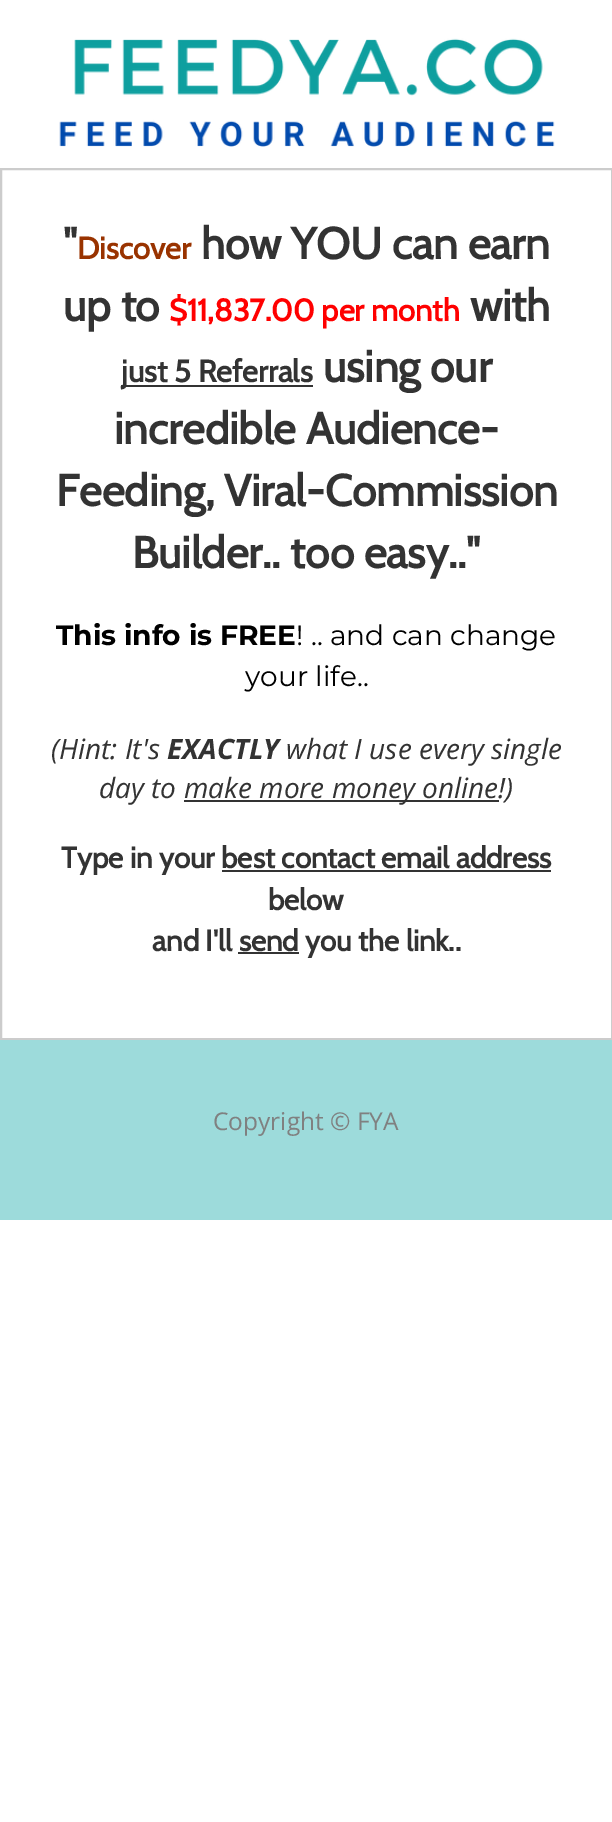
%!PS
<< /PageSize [612 1822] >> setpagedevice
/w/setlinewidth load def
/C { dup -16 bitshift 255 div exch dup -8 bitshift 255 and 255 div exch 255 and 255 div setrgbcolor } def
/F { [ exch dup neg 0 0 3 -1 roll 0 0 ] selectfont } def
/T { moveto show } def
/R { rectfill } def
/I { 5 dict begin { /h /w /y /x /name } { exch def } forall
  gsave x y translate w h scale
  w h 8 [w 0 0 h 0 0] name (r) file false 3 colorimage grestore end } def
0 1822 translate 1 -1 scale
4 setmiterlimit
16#FFFFFF C
0 0 612 1822 R
(1.rgb) 59 38 496 109 I
16#CCCCCC C
2 w
1 169 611 870 rectstroke
/Cabin-Bold 44.1 F
16#333333 C
(") 63 259 T
(how YOU can earn) 201 259 T
/Cabin-Bold 30.9 F
16#993300 C
(Discover) 77 259 T
/Cabin-Bold 44.1 F
16#333333 C
(up to) 63 321 T
/Cabin-Bold 30.9 F
16#FF0000 C
($11,837.00 per month) 169 321 T
/Cabin-Bold 44.1 F
16#333333 C
(with) 470 321 T
121 385 192 2 R
/Cabin-Bold 30.9 F
(just 5 Referrals) 121 382 T
/Cabin-Bold 44.1 F
(using our) 323 382 T
(incredible Audience-) 114 444 T
(Feeding, Viral-Commission) 56 506 T
(Builder.. too easy..") 132 568 T
/Montserrat-Bold 28 F
16#000000 C
(This info is FREE) 56 645 T
/Montserrat-Regular 28 F
(! .. and can change) 296 645 T
(your life..) 245 686 T
/OpenSans-Italic 28 F
16#333333 C
(\(Hint: It's) 51 759 T
/OpenSans-BoldItalic 28 F
(EXACTLY) 167 759 T
/OpenSans-Italic 28 F
(what I use every single) 286 759 T
(day to) 99 798 T
184 800 315 2 R
(make more money online!\)) 184 798 T
/Cabin-Bold 29.4 F
(Type in your best contact email address) 61 868 T
222 870 329 2 R
(below) 268 910 T
(and I'll send you the link..) 152 951 T
238 952 61 2 R
16#9DDBDB C
0 1040 612 180 R
/OpenSans-Regular 24.5 F
16#808080 C
(Copyright © FYA) 213 1130 T
showpage
